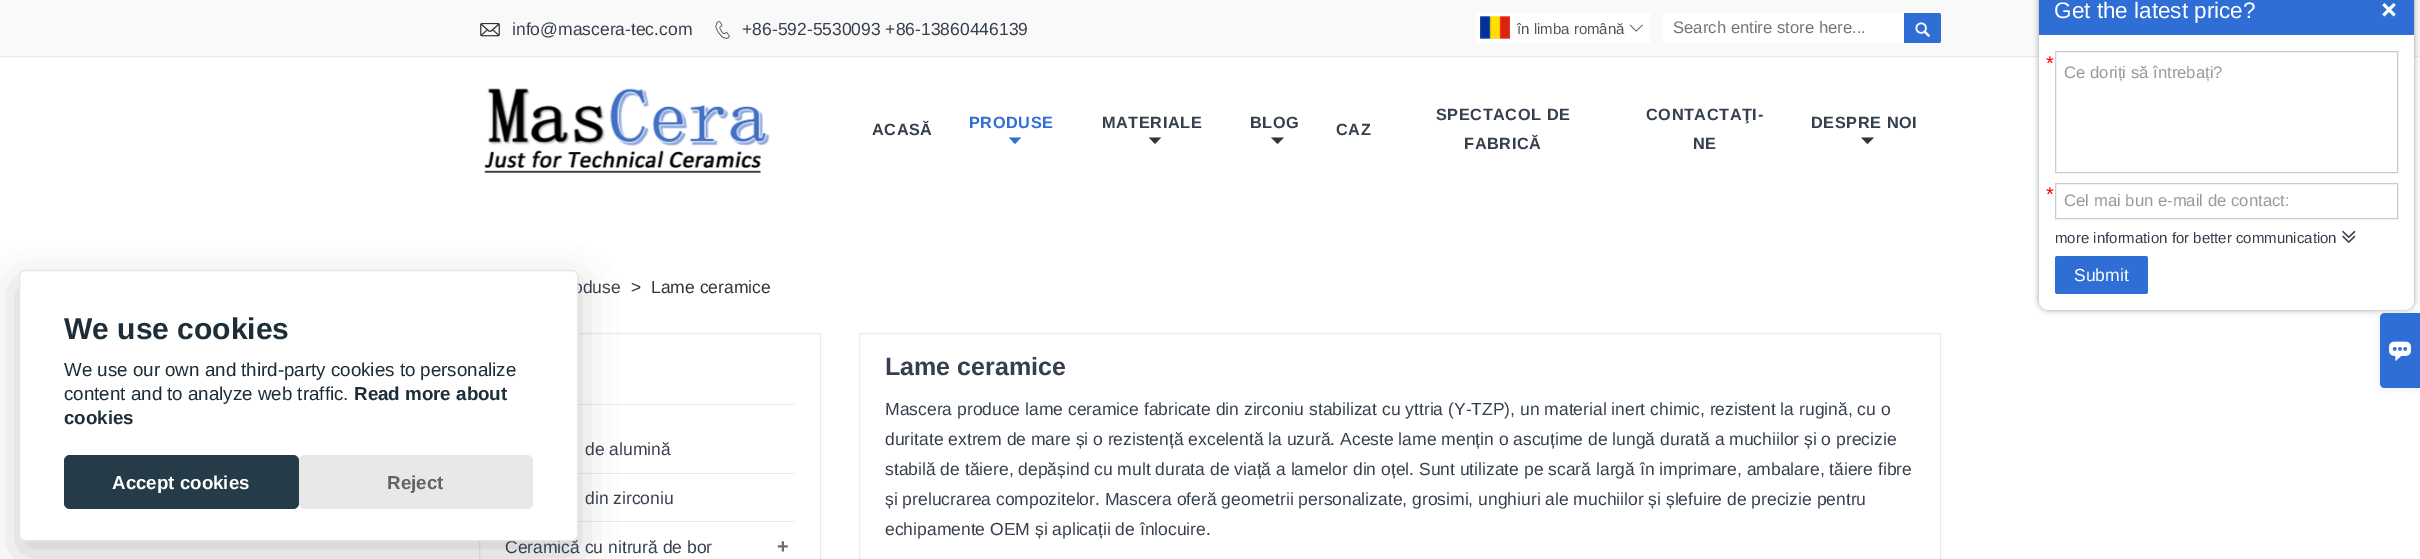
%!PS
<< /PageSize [2420 559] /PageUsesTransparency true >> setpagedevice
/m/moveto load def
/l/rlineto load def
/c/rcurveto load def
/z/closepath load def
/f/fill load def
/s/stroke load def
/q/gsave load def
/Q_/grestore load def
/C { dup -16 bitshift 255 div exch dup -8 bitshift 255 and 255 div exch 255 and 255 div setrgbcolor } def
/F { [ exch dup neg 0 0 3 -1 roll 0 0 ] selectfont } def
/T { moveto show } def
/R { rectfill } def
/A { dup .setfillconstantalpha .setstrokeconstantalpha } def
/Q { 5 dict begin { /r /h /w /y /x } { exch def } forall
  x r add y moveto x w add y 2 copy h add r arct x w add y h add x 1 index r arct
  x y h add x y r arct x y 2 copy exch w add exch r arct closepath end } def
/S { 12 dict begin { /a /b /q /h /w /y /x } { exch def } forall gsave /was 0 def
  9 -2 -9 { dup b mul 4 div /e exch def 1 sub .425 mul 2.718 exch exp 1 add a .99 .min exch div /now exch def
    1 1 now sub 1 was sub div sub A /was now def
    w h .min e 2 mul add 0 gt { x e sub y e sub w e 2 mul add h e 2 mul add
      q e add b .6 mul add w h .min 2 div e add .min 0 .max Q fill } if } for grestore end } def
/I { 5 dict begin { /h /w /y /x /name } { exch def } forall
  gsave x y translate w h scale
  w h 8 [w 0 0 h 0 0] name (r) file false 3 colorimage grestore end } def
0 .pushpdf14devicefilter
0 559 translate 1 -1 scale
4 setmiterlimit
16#FFFFFF C
0 0 2420 559 R
16#EBEBEB C
479.5 333.5 341 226 rectstroke
578 404 217 1 R
578 473 217 1 R
578 521 217 1 R
16#020203 C
19 283 559 271 6 19 .2 S
/LiberationSans-Regular 17.5 F
16#363F4D C
(oduse) 573 293 T
(Ceramică cu nitrură de bor) 505 553 T
16#FFFFFF C
19.5 270.5 558 270 5.5 Q q f Q_
16#E6E6E6 C
s
/LiberationSans-Bold 30 F
16#1D2E38 C
(We use cookies) 64 339 T
/LiberationSans-Regular 18.75 F
(We use our own and third-party cookies to personalize) 64 376 T
(content and to analyze web traffic.) 64 400 T
/LiberationSans-Bold 18.75 F
(Read more about) 354 400 T
(cookies) 64 424 T
16#253B48 C
64 455 235 54 6 Q f
16#FFFFFF C
(Accept cookies) 112 489 T
16#E8E8E8 C
299 455 234 54 6 Q f
16#636363 C
(Reject) 387 489 T
16#F9F9F9 C
0 0 2420 58 R
16#EBEBEB C
0 56 2420 1 R
(1.rgb) 480 23 20 14 I
/LiberationSans-Regular 17.5 F
16#363F4D C
(info@mascera-tec.com) 512 35 T
(2.rgb) 715 21 15 18 I
(+86-592-5530093 +86-13860446139) 742 35 T
16#FFFFFF C
1476 13 174 30 R
(3.rgb) 1480 16 30 23 I
/LiberationSans-Regular 15 F
16#555555 C
(în limba română) 1517 34 T
(4.rgb) 1629 24 14 8 I
16#FFFFFF C
1665.5 13 m 238.5 0 l 0 30 l -238.5 0 l -1.5 0 -2.5 -1 -2.5 -2.5 c 0 -25 l 0 -1.5 1 -2.5 2.5 -2.5 c z f
/LiberationSans-Regular 16.7 F
16#757575 C
(Search entire store here...) 1673 33 T
16#2E6ED5 C
1904 13 m 34.5 0 l 1.5 0 2.5 1 2.5 2.5 c 0 25 l 0 1.5 -1 2.5 -2.5 2.5 c -34.5 0 l z f
(5.rgb) 1915 22 15 15 I
(6.rgb) 484 88 286 85 I
/LiberationSans-Bold 16.25 F
16#363F4D C
872 135 m .6 0 (ACASĂ) ashow
16#2E6ED5 C
969 128 m .6 0 (PRODUSE) ashow
1009 137.5 m 12 0 l -6 6.5 l z f
16#363F4D C
1102 128 m .6 0 (MATERIALE) ashow
16#333333 C
1149 137.5 m 12 0 l -6 6.5 l z f
16#363F4D C
1250 128 m .6 0 (BLOG) ashow
16#333333 C
1271 137.5 m 13 0 l -6.5 6.5 l z f
16#363F4D C
1336 135 m .6 0 (CAZ) ashow
1436 120 m .6 0 (SPECTACOL DE) ashow
1464 149 m .6 0 (FABRICĂ) ashow
1646 120 m .6 0 (CONTACTAŢI-) ashow
1693 149 m .6 0 (NE) ashow
1811 128 m .6 0 (DESPRE NOI) ashow
16#333333 C
1861 137.5 m 13 0 l -6.5 6.5 l z f
/LiberationSans-Regular 17.5 F
(>) 631 293 T
(Lame ceramice) 651 293 T
16#363F4D C
(de alumină) 585 455 T
(din zirconiu) 585 504 T
/LiberationSans-Bold 20 F
16#6D6D6D C
(+) 777 553 T
16#EBEBEB C
859.5 333.5 1081 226 rectstroke
/LiberationSans-Bold 25 F
16#363F4D C
(Lame ceramice) 885 375 T
/LiberationSans-Regular 17.5 F
(Mascera produce lame ceramice fabricate din zirconiu stabilizat cu yttria \(Y-TZP\), un material inert chimic, rezistent la rugină, cu o) 885 415 T
(duritate extrem de mare și o rezistență excelentă la uzură. Aceste lame mențin o ascuțime de lungă durată a muchiilor și o precizie) 885 445 T
(stabilă de tăiere, depășind cu mult durata de viață a lamelor din oțel. Sunt utilizate pe scară largă în imprimare, ambalare, tăiere fibre) 885 475 T
(și prelucrarea compozitelor. Mascera oferă geometrii personalizate, grosimi, unghiuri ale muchiilor și șlefuire de precizie pentru) 885 505 T
(echipamente OEM și aplicații de înlocuire.) 885 535 T
16#999999 C
2039 -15 375 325 10 3 1 S
16#2E6ED5 C
2039 0 375 35 R
/LiberationSans-Regular 22.5 F
16#FFFFFF C
(Get the latest price?) 2054 18 T
(7.rgb) 2382 3 14 14 I
2039 35 m 375 0 l 0 265 l 0 5.5 -4.5 10 -10 10 c -355 0 l -5.5 0 -10 -4.5 -10 -10 c z f
16#CCCCCC C
2055.5 51.5 342 121 rectstroke
/LiberationSans-Regular 20 F
16#FF0000 C
(*) 2046 70 T
/LiberationSans-Regular 16.7 F
16#999999 C
(Ce doriți să întrebați?) 2064 78 T
16#CCCCCC C
2055.5 183.5 342 35 rectstroke
/LiberationSans-Regular 20 F
16#FF0000 C
(*) 2046 201 T
/LiberationSans-Regular 16.7 F
16#999999 C
(Cel mai bun e-mail de contact:) 2064 206 T
/LiberationSans-Regular 15 F
16#363F4D C
(more information for better communication) 2055 243 T
(8.rgb) 2342 230 14 13 I
16#2E6ED5 C
2055 256 93 38 2.5 Q f
/LiberationSans-Regular 17.5 F
16#FFFFFF C
(Submit) 2074 281 T
16#EAF0F6 C
2380 313 40 75 5 5 1 S
16#2E6ED5 C
2385 313 m 35 0 l 0 75 l -35 0 l -3 0 -5 -2 -5 -5 c 0 -65 l 0 -3 2 -5 5 -5 c z f
(9.rgb) 2389 341 22 20 I
.poppdf14devicefilter showpage
